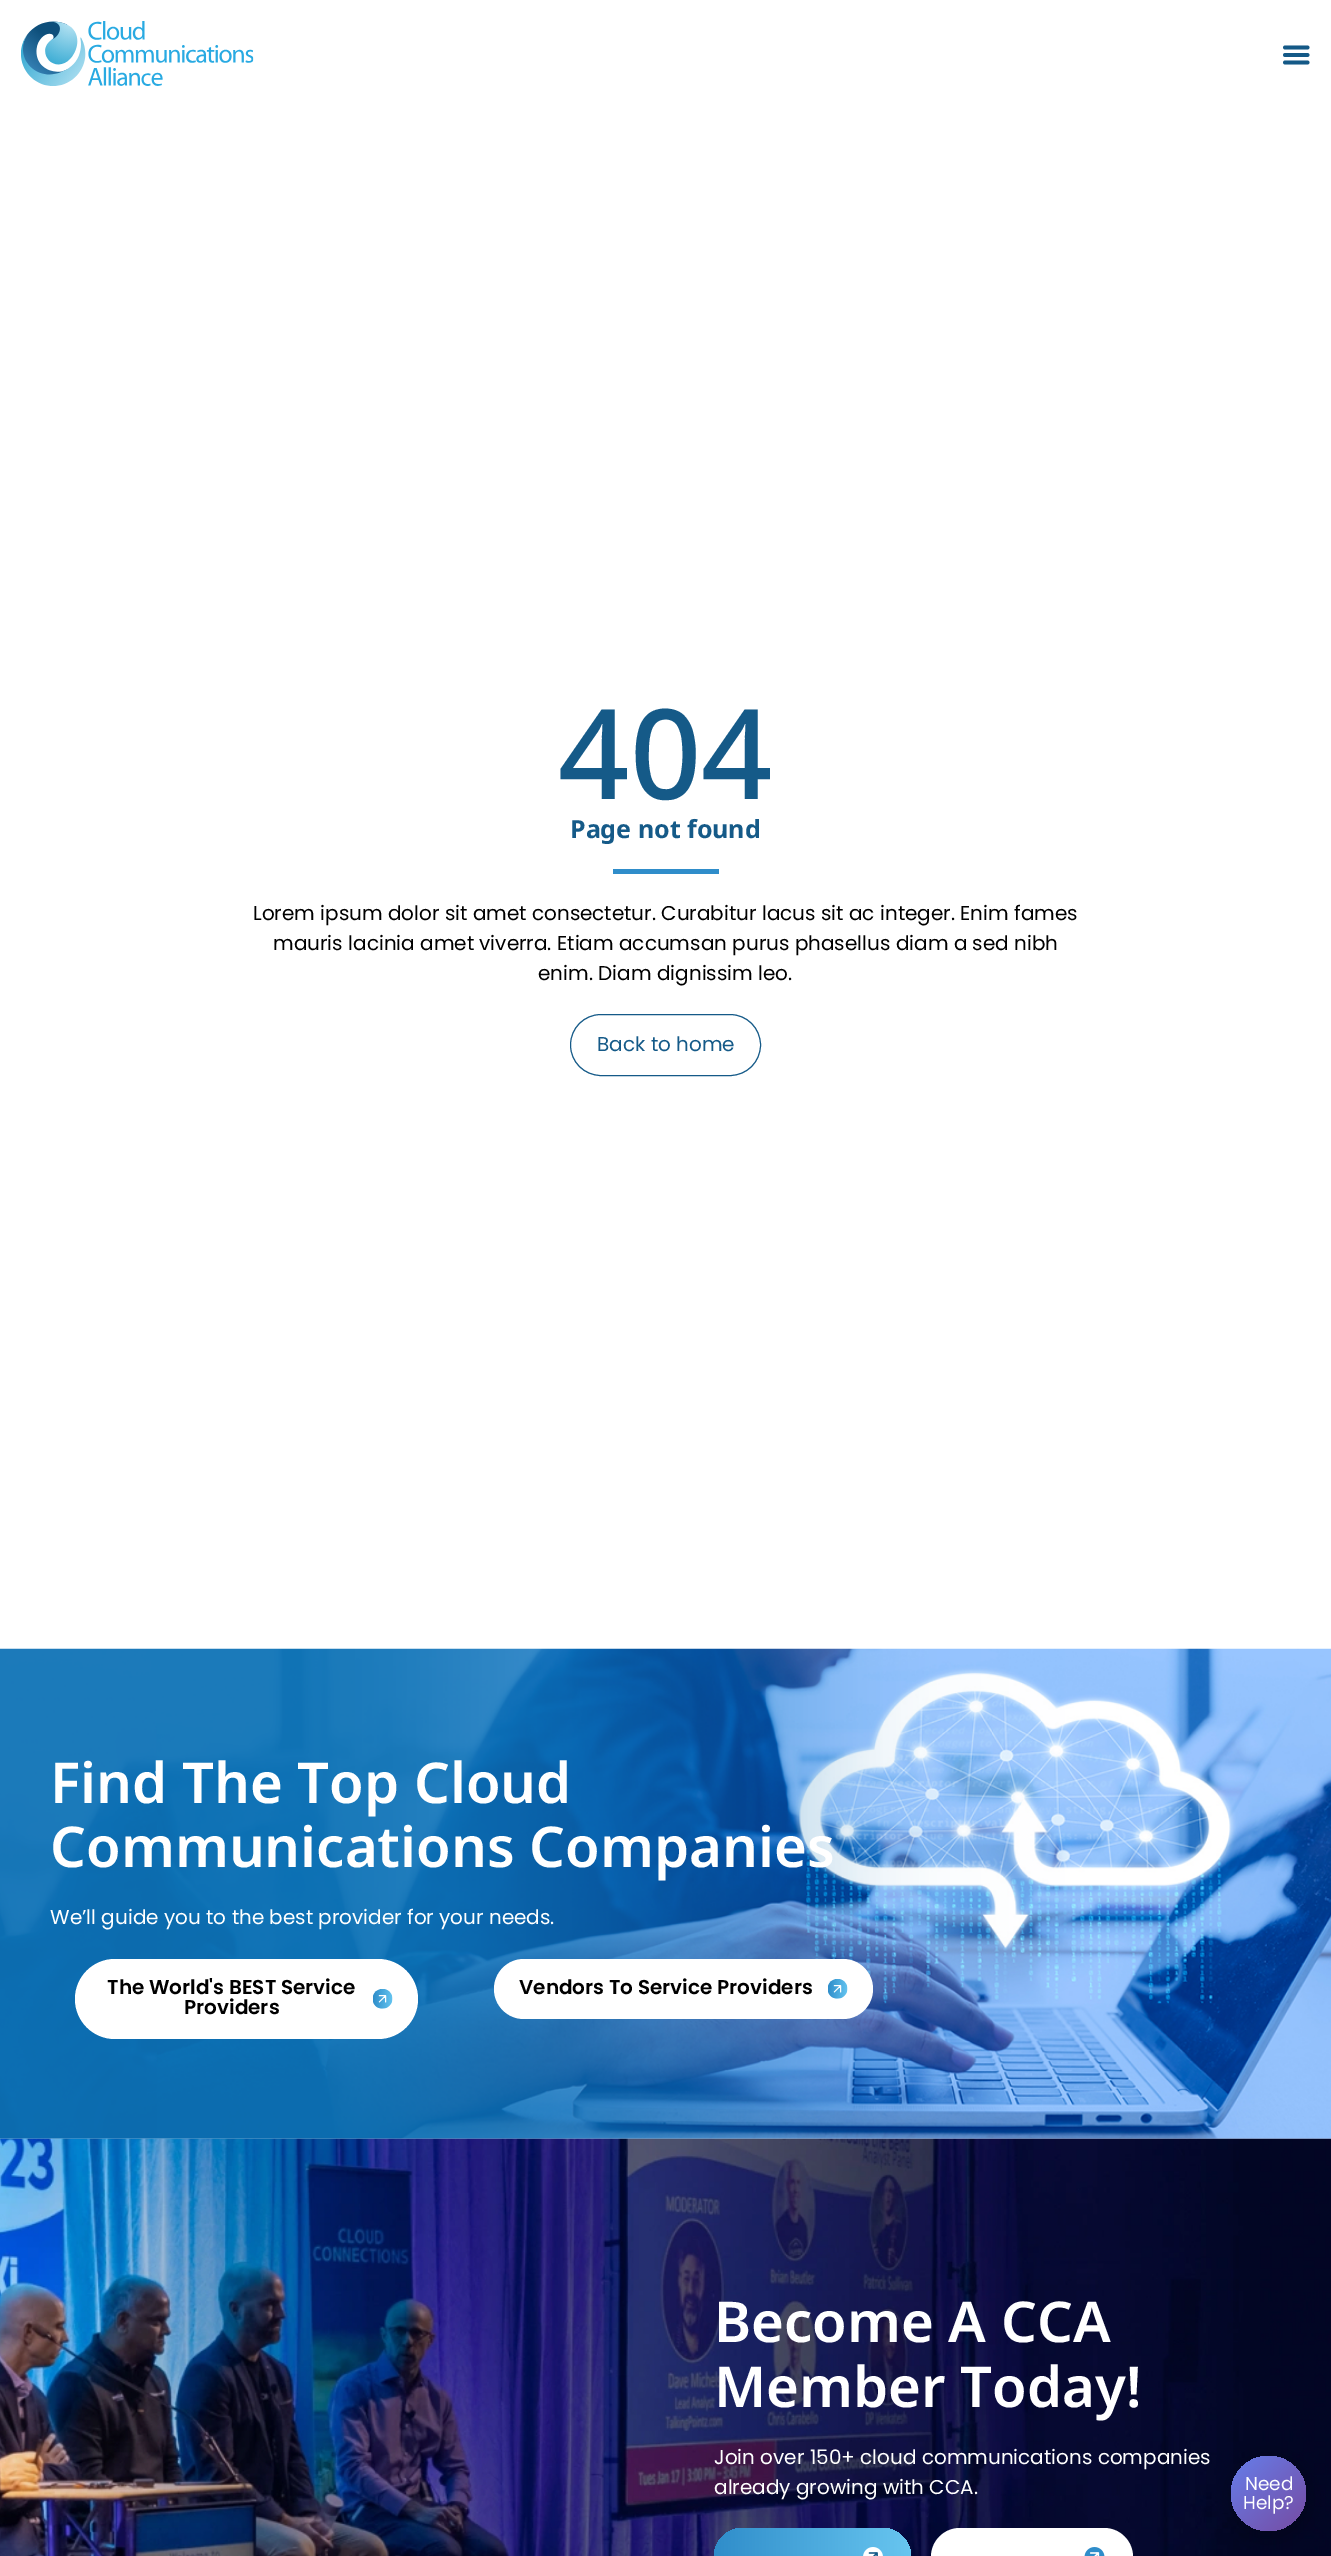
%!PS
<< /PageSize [1331 2556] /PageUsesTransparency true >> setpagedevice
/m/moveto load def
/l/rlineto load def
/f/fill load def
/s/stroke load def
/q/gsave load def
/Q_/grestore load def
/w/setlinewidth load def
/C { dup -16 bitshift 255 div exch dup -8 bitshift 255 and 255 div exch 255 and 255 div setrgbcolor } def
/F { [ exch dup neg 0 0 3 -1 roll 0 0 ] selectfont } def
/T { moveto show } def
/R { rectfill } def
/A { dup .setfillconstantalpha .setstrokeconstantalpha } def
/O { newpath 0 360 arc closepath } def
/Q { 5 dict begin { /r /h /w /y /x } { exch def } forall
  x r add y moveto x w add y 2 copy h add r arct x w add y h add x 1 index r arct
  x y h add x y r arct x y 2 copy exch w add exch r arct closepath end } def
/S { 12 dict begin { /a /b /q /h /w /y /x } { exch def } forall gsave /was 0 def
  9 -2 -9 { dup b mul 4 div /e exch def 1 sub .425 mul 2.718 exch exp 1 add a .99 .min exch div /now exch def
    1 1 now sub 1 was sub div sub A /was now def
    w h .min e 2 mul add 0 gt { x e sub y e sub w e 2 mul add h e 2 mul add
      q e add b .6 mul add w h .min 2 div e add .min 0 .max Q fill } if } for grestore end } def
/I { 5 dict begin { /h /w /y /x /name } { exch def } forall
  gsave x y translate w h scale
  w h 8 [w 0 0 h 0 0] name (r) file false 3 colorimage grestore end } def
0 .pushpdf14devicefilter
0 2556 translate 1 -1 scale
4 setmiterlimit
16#FFFFFF C
0 0 1331 2556 R
(1.rgb) 21 21 233 65 I
16#145987 C
3.8 w
1 setlinecap
1 setlinejoin
1285 55 m 22.5 0 l 1285 47.5 m 22.5 0 l 1285 62.5 m 22.5 0 l s
/NotoSans-Medium 125 F
16#155A88 C
(404) 558 799 T
/NotoSans-Bold 25 F
(Page not found) 570 838 T
16#2F8DCA C
613 869 106 5 R
/Poppins-Regular 20 F
16#000000 C
(Lorem ipsum dolor sit amet consectetur. Curabitur lacus sit ac integer. Enim fames) 253 920 T
(mauris lacinia amet viverra. Etiam accumsan purus phasellus diam a sed nibh) 273 950 T
(enim. Diam dignissim leo.) 538 980 T
16#155A88 C
1 w
0 setlinecap
0 setlinejoin
570.5 1014.5 190 61 30.5 Q s
(Back to home) 597 1051 T
(2.rgb) 0 1648 1331 491 I
/NotoSans-SemiBold 56.25 F
16#FFFFFF C
(Find The Top Cloud) 50 1803 T
(Communications Companies) 50 1867 T
/Poppins-Regular 20 F
(We’ll guide you to the best provider for your needs.) 50 1924 T
75 1959 343 80 40 Q f
/Poppins-SemiBold 20 F
16#000000 C
(The World's BEST Service) 107 1994 T
(Providers) 184 2014 T
(3.rgb) 373 1989 20 20 I
16#FFFFFF C
494 1959 379 60 30 Q f
16#000000 C
(Vendors To Service Providers) 519 1994 T
(4.rgb) 828 1979 20 20 I
(5.rgb) 0 2138 1331 418 I
/NotoSans-SemiBold 56.25 F
16#FFFFFF C
(Become A CCA) 714 2342 T
(Member Today!) 714 2407 T
/Poppins-Regular 20 F
(Join over 150+ cloud communications companies) 714 2464 T
(already growing with CCA.) 714 2494 T
q 714 2528 197 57 29 Q clip newpath
<< /ShadingType 2 /ColorSpace /DeviceRGB /Coords [714 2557 911 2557] /Extend [true true] /Function << /FunctionType 2 /Domain [0 1] /C0 [.184 .553 .792] /C1 [.408 .776 .941] /N 1 >> >> shfill Q_
(6.rgb) 863 2547 20 9 I
931 2528 202 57 29 Q f
(7.rgb) 1084 2547 21 9 I
16#000000 C
1231 2461 75 75 37.5 12.5 .3 S
q 1268.5 2493.5 37.5 O clip newpath
<< /ShadingType 2 /ColorSpace /DeviceRGB /Coords [1231 2456 1306 2531] /Extend [true true] /Function << /FunctionType 2 /Domain [0 1] /C0 [.4 .494 .918] /C1 [.463 .294 .635] /N 1 >> >> shfill Q_
/Poppins-Regular 18.5 F
16#FFFFFF C
(Need) 1245 2490 T
(Help?) 1243 2509 T
.poppdf14devicefilter showpage
